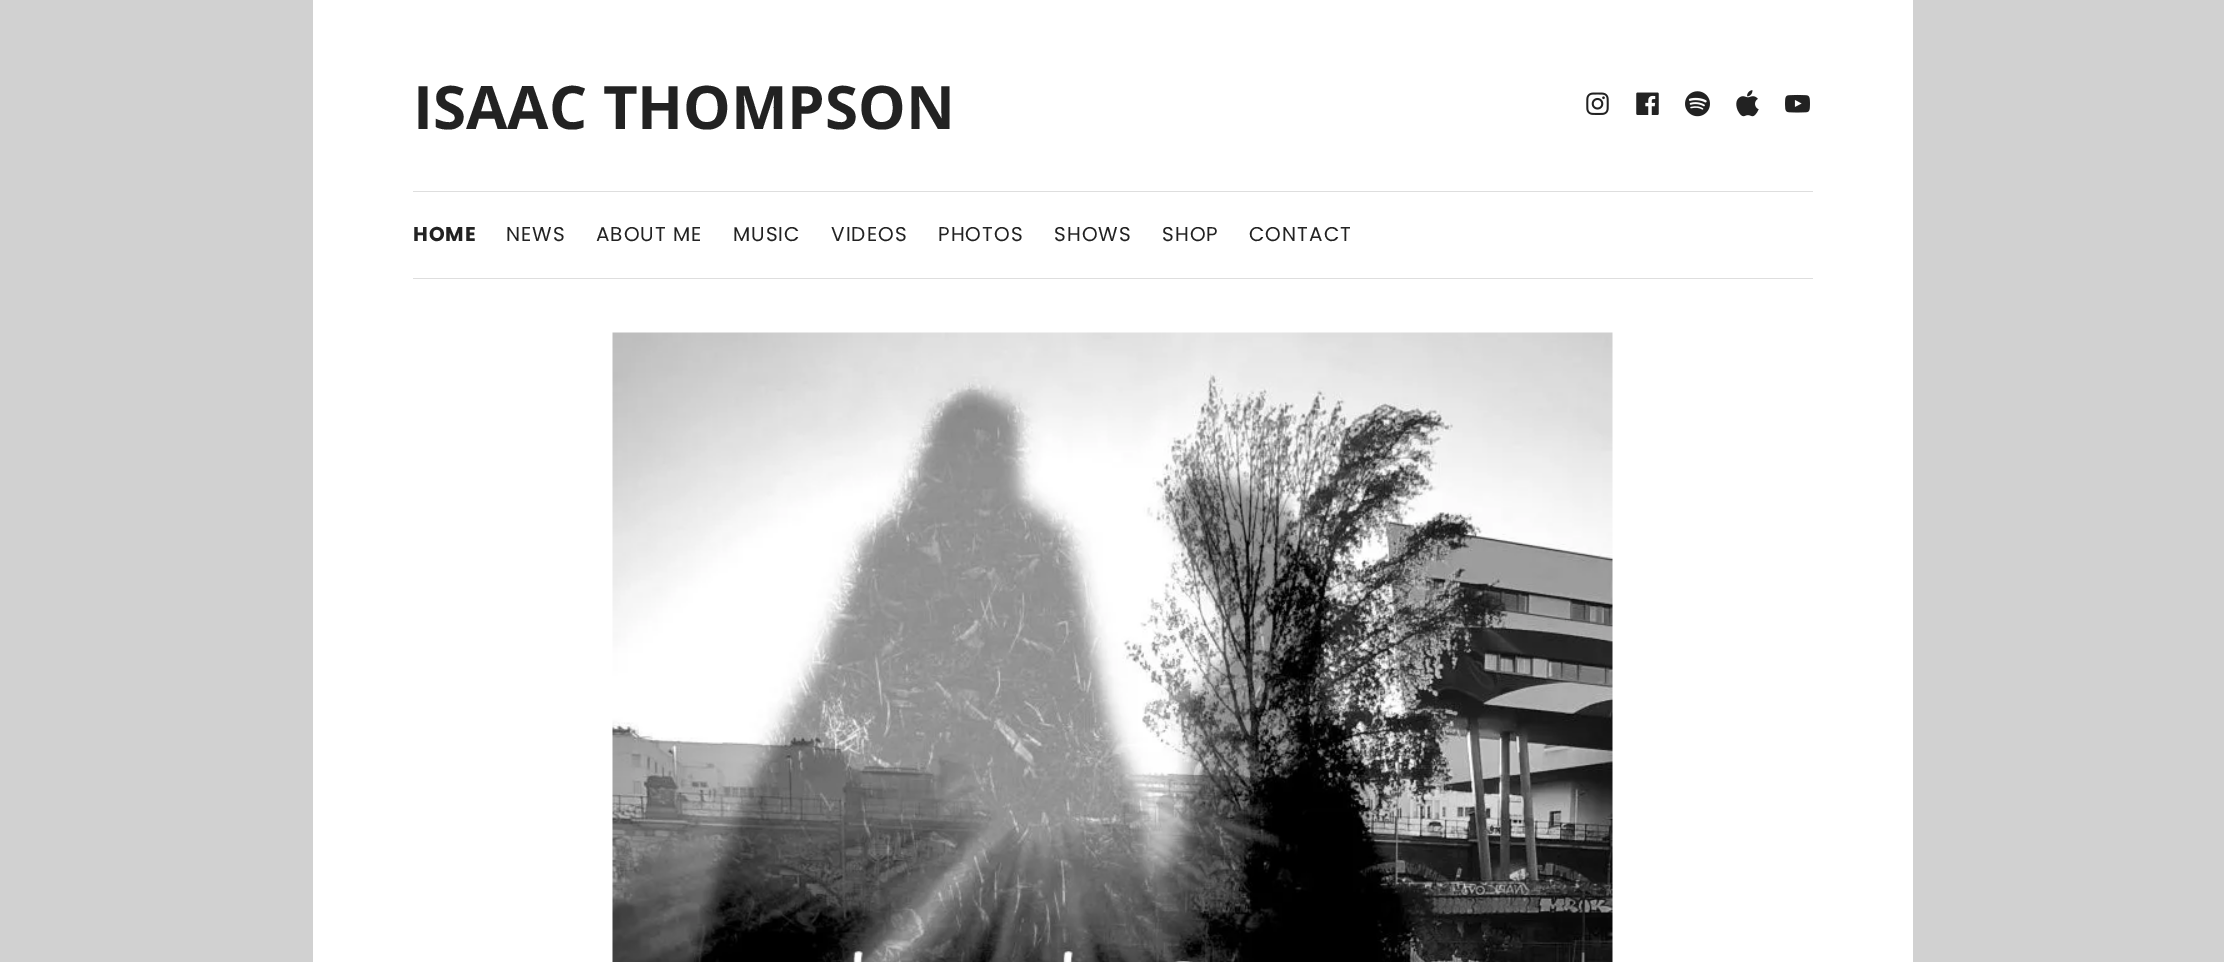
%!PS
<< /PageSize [2224 962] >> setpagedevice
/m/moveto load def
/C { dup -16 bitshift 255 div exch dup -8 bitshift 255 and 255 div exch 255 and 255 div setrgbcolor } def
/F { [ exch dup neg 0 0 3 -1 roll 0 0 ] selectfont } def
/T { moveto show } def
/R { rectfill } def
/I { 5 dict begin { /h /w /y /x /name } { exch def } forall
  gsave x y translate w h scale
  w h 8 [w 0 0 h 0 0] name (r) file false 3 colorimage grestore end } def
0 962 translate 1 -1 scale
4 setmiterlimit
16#D1D1D1 C
0 0 2224 962 R
16#FFFFFF C
313 0 1600 962 R
16#DEDEDE C
413 278 1400 1 R
/OpenSans-Bold 60 F
16#222222 C
(ISAAC THOMPSON) 413 129 T
(1.rgb) 1586 92 23 23 I
(2.rgb) 1636 92 23 23 I
(3.rgb) 1685 91 25 26 I
(4.rgb) 1736 90 23 27 I
(5.rgb) 1785 94 25 19 I
16#DEDEDE C
413 191 1400 1 R
/Poppins-Bold 20 F
16#222222 C
413 241 m 1 0 (HOME) ashow
/Poppins-Regular 20 F
506 241 m 1 0 (NEWS) ashow
596 241 m 1 0 (ABOUT ME) ashow
733 241 m 1 0 (MUSIC) ashow
831 241 m 1 0 (VIDEOS) ashow
938 241 m 1 0 (PHOTOS) ashow
1054 241 m 1 0 (SHOWS) ashow
1162 241 m 1 0 (SHOP) ashow
1249 241 m 1 0 (CONTACT) ashow
(6.rgb) 612 332 1001 630 I
showpage
